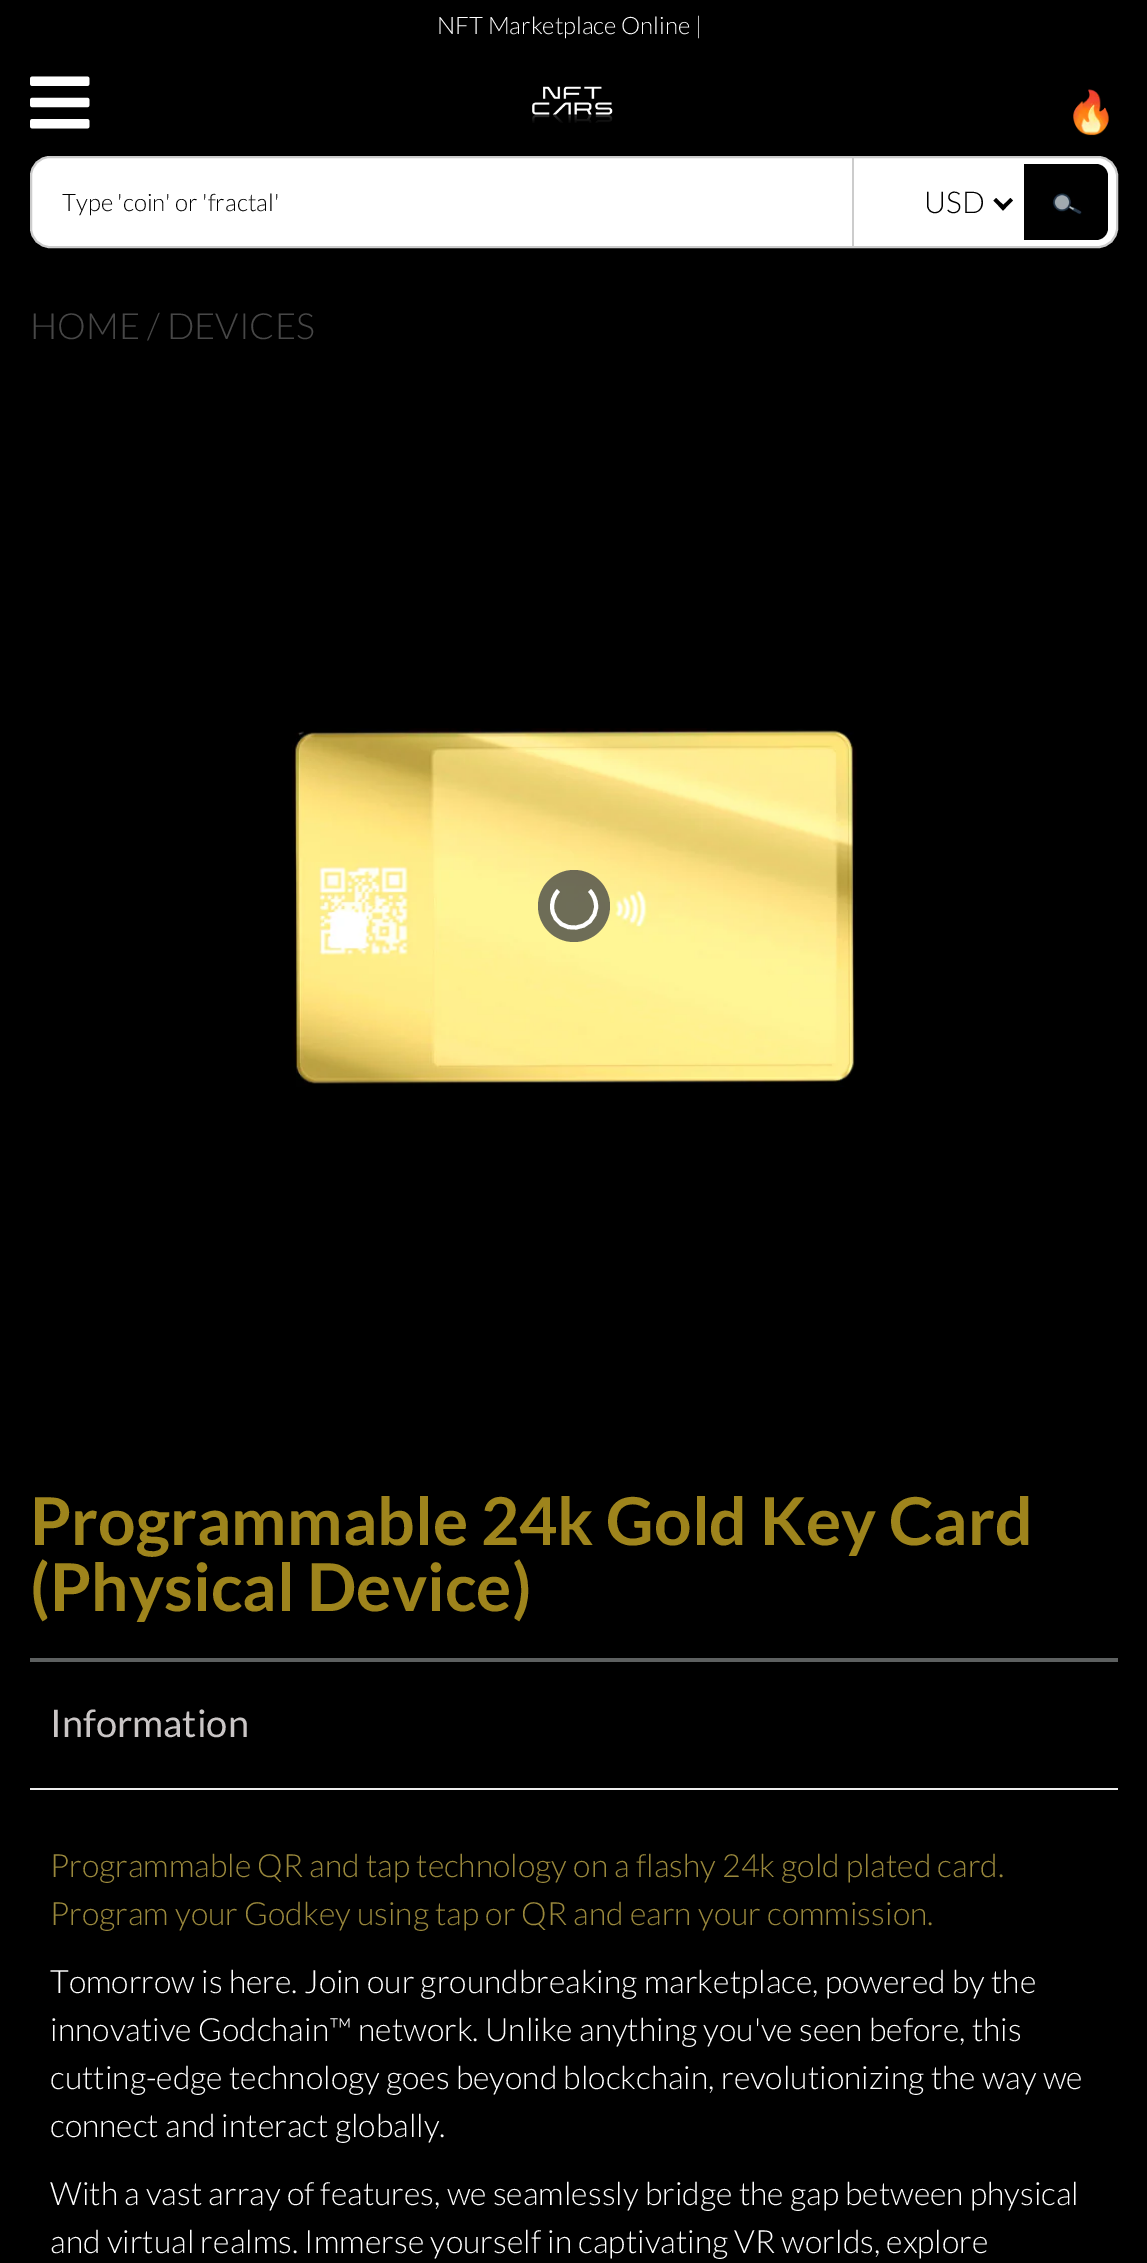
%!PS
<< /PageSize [1147 2263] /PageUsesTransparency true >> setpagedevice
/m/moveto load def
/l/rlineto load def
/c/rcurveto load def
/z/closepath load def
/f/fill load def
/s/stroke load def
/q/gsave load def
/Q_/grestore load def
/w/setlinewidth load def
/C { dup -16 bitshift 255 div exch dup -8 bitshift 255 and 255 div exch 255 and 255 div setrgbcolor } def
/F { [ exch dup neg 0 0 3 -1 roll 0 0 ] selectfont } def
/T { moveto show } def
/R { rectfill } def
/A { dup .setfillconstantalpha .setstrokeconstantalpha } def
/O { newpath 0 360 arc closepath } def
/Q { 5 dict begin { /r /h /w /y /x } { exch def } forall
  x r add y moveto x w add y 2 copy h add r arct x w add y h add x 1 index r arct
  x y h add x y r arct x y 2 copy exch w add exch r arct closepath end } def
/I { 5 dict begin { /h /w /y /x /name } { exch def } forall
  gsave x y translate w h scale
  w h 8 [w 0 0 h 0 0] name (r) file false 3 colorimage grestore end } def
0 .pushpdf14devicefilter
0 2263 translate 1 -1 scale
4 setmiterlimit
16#000000 C
0 0 1147 2263 R
/Lato-Light 24 F
16#FFFFFF C
(NFT Marketplace Online |) 437 34 T
(1.rgb) 30 76 60 53 I
(2.rgb) 532 86 81 37 I
(3.rgb) 1073 89 36 47 I
31 157 1086 90 19 Q q f Q_
16#CCCCCC C
2 w
s
16#000000 C
(Type 'coin' or 'fractal') 62 211 T
16#CCCCCC C
852 156 2 92 R
/Lato-Light 30 F
16#000000 C
(USD) 924 213 T
1010.5 198 m 2.5 2.5 l -10 10 l -2.5 -3 l z f
996 198 m 10 9.5 l -3 3 l -9.5 -10 l z f
1024 164 m 72 0 l 6.5 0 12 5.5 12 12 c 0 52 l 0 6.5 -5.5 12 -12 12 c -72 0 l z f
(4.rgb) 1052 193 30 22 I
/Lato-Light 36 F
16#474747 C
(HOME) 30 339 T
(/ DEVICES) 147 339 T
(5.rgb) 292 728 565 359 I
0.7 A
16#31333D C
574 906 36 O f
1 A
16#FFFFFF C
4 w
589.5 890.5 m 4 4 6.5 9.5 6.5 15.5 c 0 26 -38.5 30 -43.5 4.5 c -1.5 -7.5 1 -15 6 -20 c s
/Lato-Bold 66 F
16#9E841C C
(Programmable 24k Gold Key Card) 30 1545 T
(\(Physical Device\)) 30 1611 T
16#EEEEEE C
30 1788 1088 2 R
16#5D6060 C
30 1658 1088 4 R
/Lato-Regular 38 F
16#CAC6C6 C
(Information) 50 1737 T
/Lato-Light 32 F
16#9A883C C
(Programmable QR and tap technology on a flashy 24k gold plated card.) 50 1877 T
(Program your Godkey using tap or QR and earn your commission.) 50 1925 T
16#FFFFFF C
(Tomorrow is here. Join our groundbreaking marketplace, powered by the) 50 1993 T
(innovative Godchain™ network. Unlike anything you've seen before, this) 50 2041 T
(cutting-edge technology goes beyond blockchain, revolutionizing the way we) 50 2089 T
(connect and interact globally.) 50 2137 T
(With a vast array of features, we seamlessly bridge the gap between physical) 50 2205 T
(and virtual realms. Immerse yourself in captivating VR worlds, explore) 50 2253 T
.poppdf14devicefilter showpage
